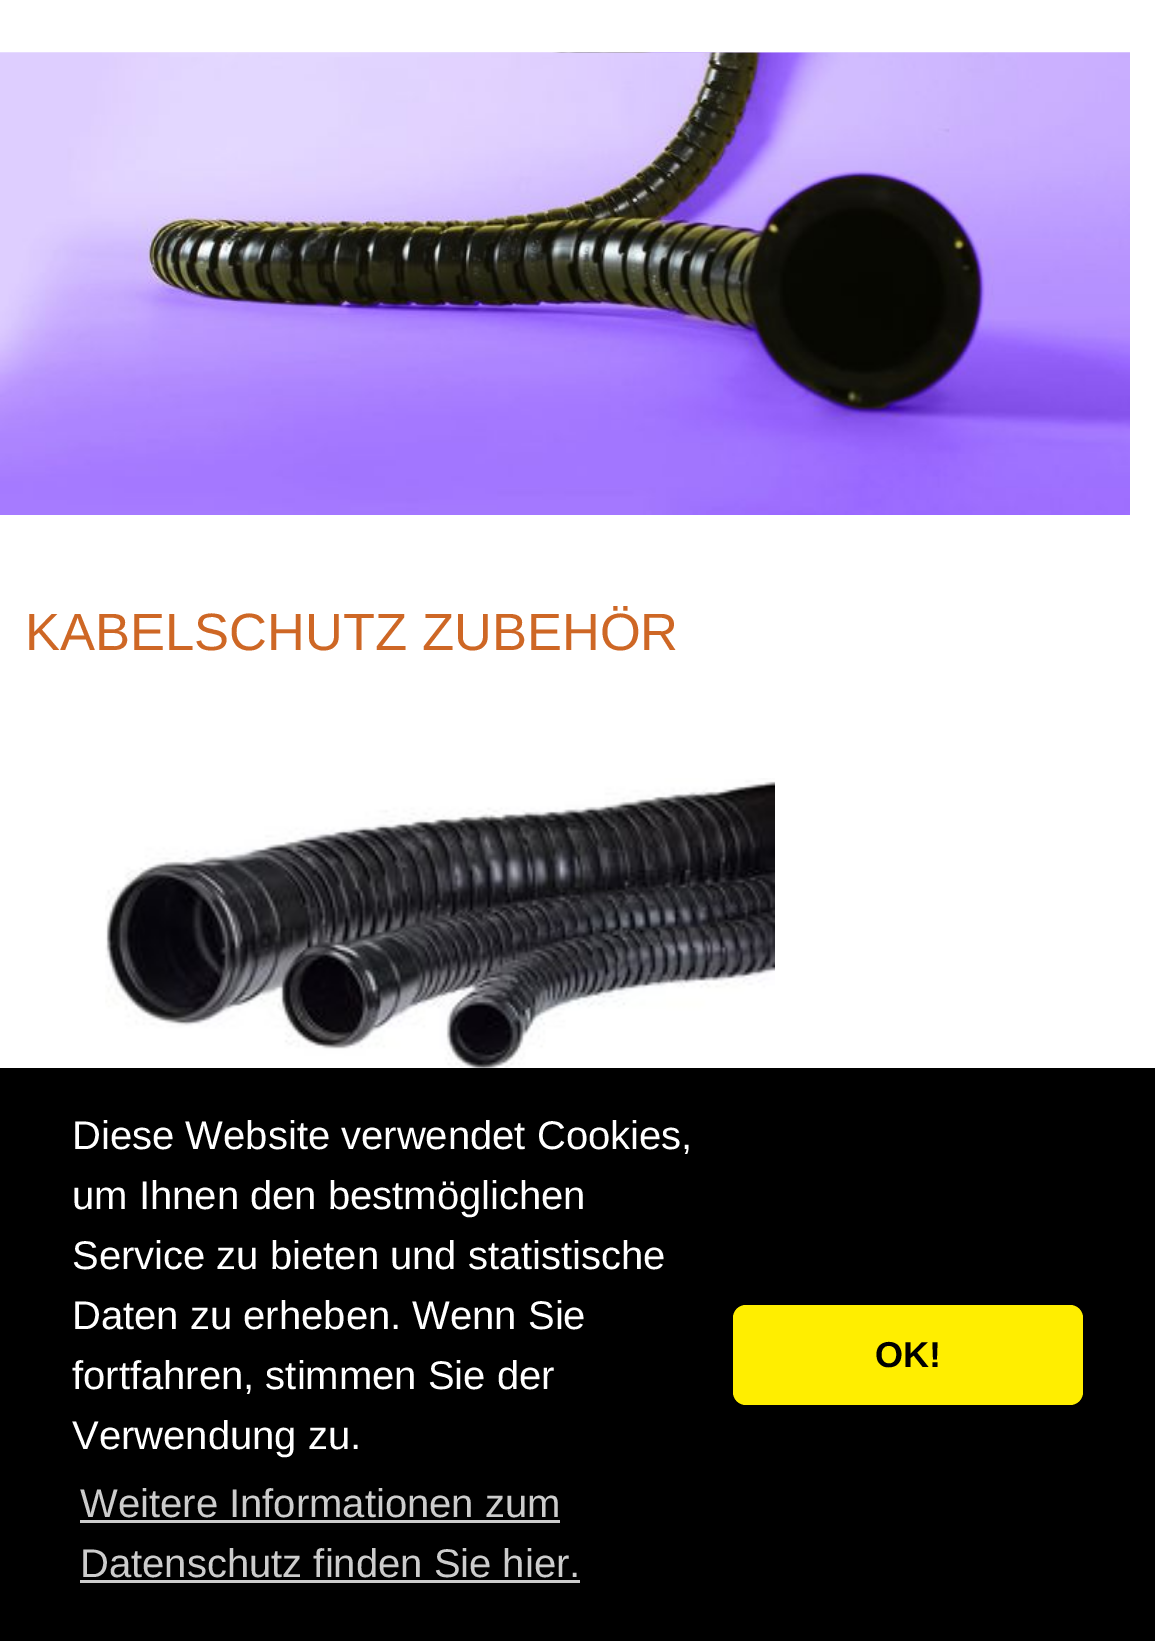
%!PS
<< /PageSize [1155 1641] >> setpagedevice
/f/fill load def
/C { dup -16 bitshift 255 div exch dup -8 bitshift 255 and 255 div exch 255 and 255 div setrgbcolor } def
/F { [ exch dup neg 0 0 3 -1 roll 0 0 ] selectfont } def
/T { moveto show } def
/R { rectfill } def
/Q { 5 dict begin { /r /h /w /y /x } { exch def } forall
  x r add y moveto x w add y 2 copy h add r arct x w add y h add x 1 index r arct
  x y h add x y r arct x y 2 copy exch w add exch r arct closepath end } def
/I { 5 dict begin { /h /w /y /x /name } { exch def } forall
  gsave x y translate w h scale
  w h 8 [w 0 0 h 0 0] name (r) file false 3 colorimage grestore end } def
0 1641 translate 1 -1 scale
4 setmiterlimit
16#FFFFFF C
0 0 1155 1641 R
(1.rgb) 0 52 1130 1 I
(2.rgb) 0 52 1130 463 I
/LiberationSans-Regular 52.5 F
16#CE6725 C
(KABELSCHUTZ ZUBEHÖR) 25 650 T
(3.rgb) 105 778 670 290 I
16#000000 C
0 1068 1155 573 R
/LiberationSans-Regular 40 F
16#FFFFFF C
(Diese Website verwendet Cookies,) 72 1149 T
(um Ihnen den bestmöglichen) 72 1209 T
(Service zu bieten und statistische) 72 1269 T
(Daten zu erheben. Wenn Sie) 72 1329 T
(fortfahren, stimmen Sie der) 72 1389 T
(Verwendung zu.) 72 1449 T
16#CCCCCC C
(Weitere Informationen zum) 80 1517 T
80 1520 480 3 R
(Datenschutz finden Sie hier.) 80 1577 T
80 1580 500 3 R
16#FFEE00 C
733 1305 350 100 13 Q f
/LiberationSans-Bold 36 F
16#000000 C
(OK!) 875 1367 T
showpage
